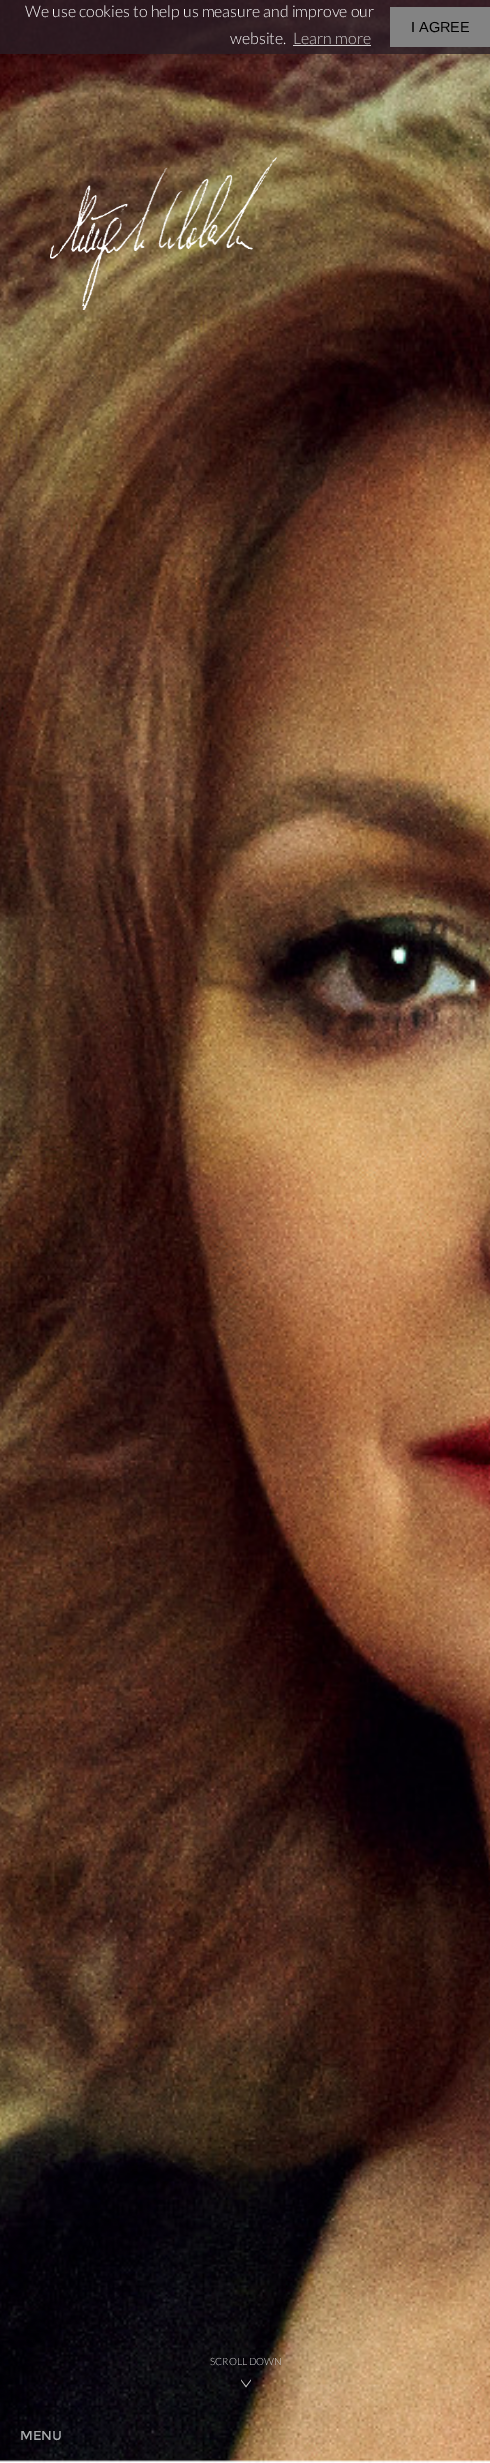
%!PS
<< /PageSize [490 2463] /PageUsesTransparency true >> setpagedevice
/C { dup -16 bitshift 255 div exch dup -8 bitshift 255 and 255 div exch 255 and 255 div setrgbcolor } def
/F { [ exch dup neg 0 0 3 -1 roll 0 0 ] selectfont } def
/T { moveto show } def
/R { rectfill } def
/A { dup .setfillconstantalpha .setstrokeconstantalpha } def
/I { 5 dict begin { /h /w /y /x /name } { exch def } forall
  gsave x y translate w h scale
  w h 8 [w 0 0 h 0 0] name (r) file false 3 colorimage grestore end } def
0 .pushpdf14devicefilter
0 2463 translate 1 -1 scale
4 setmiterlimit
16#FFFFFF C
0 0 490 2463 R
(1.rgb) 0 0 490 2463 I
0.8 A
16#291D25 C
0 0 490 54 R
/Lato-Light 16 F
1 A
16#FFFFFF C
(We use cookies to help us measure and improve our) 25 17 T
(website.) 230 44 T
16#D2D1D0 C
(Learn more) 293 44 T
0.8 A
16#FFFFFF C
293 45 78 1 R
1 A
16#838383 C
390 7 100 40 R
/LiberationSans-Regular 14.5 F
16#000000 C
(I AGREE) 411 32 T
(2.rgb) 50 157 227 153 I
/Lato-Light 10 F
16#D2D1D0 C
(SCROLL DOWN) 210 2365 T
(3.rgb) 241 2379 10 9 I
/Montserrat-Regular 13 F
16#A7A9AC C
(MENU) 20 2440 T
.poppdf14devicefilter showpage
